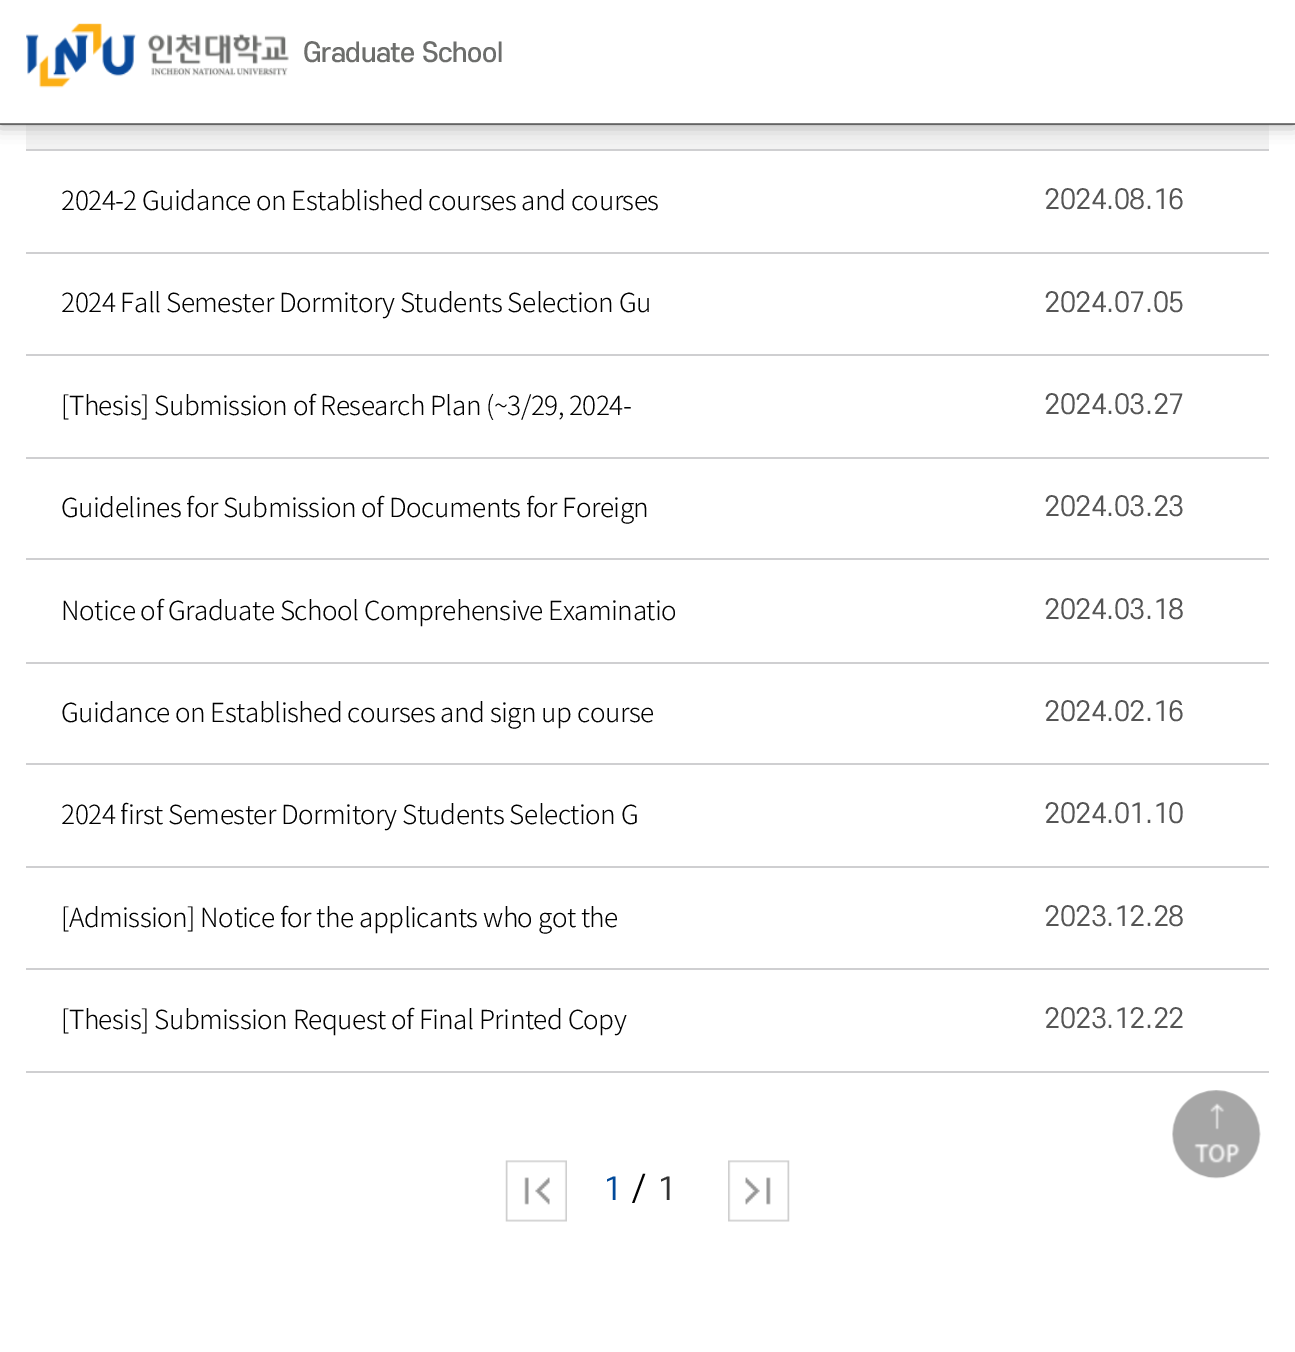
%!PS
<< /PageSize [1295 1352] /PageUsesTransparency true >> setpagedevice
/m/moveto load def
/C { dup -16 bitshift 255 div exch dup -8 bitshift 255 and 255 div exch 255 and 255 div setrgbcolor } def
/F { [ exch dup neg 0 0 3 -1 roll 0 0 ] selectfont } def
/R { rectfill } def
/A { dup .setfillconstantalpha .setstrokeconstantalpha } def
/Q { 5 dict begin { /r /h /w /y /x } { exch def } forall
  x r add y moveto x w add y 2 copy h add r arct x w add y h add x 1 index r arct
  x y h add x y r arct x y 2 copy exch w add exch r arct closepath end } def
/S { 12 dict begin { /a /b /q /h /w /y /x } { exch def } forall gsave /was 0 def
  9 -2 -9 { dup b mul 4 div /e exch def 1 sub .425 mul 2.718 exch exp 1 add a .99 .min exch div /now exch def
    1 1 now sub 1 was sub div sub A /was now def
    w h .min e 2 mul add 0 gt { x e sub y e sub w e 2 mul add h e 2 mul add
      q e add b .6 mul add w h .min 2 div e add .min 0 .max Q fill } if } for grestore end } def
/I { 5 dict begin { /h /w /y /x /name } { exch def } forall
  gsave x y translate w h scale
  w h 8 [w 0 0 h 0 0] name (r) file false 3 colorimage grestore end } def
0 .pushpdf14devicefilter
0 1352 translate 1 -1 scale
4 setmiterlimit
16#FFFFFF C
0 0 1295 1352 R
16#F2F2F2 C
26 124 1243 25 R
16#CFCFD1 C
26 149 1243 2 R
16#999999 C
0 -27 1295 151 0 9 1 S
16#FFFFFF C
0 0 1295 124 R
0.5 A
16#000000 C
0 123 1295 2 R
1 A
(1.rgb) 26 23 263 65 I
/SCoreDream-Medium 26.25 F
16#6D6E6C C
303 62 m -.53 0 (Graduate School) ashow
/NotoSansKR-Light 26.25 F
16#000000 C
61 210 m -.53 0 (2024-2 Guidance on Established courses and courses) ashow
16#CFCFD1 C
26 252 1243 2 R
/SCoreDream-Regular 26.25 F
16#555555 C
1044 209 m -.53 0 (2024.08.16) ashow
/NotoSansKR-Light 26.25 F
16#000000 C
61 312 m -.53 0 (2024 Fall Semester Dormitory Students Selection Gu) ashow
16#CFCFD1 C
26 354 1243 2 R
/SCoreDream-Regular 26.25 F
16#555555 C
1044 312 m -.53 0 (2024.07.05) ashow
/NotoSansKR-Light 26.25 F
16#000000 C
61 415 m -.53 0 ([Thesis] Submission of Research Plan \(~3/29, 2024-) ashow
16#CFCFD1 C
26 457 1243 2 R
/SCoreDream-Regular 26.25 F
16#555555 C
1044 414 m -.53 0 (2024.03.27) ashow
/NotoSansKR-Light 26.25 F
16#000000 C
61 517 m -.53 0 (Guidelines for Submission of Documents for Foreign) ashow
16#CFCFD1 C
26 558 1243 2 R
/SCoreDream-Regular 26.25 F
16#555555 C
1044 516 m -.53 0 (2024.03.23) ashow
/NotoSansKR-Light 26.25 F
16#000000 C
61 620 m -.53 0 (Notice of Graduate School Comprehensive Examinatio) ashow
16#CFCFD1 C
26 662 1243 2 R
/SCoreDream-Regular 26.25 F
16#555555 C
1044 619 m -.53 0 (2024.03.18) ashow
/NotoSansKR-Light 26.25 F
16#000000 C
61 722 m -.53 0 (Guidance on Established courses and sign up course) ashow
16#CFCFD1 C
26 763 1243 2 R
/SCoreDream-Regular 26.25 F
16#555555 C
1044 721 m -.53 0 (2024.02.16) ashow
/NotoSansKR-Light 26.25 F
16#000000 C
61 824 m -.53 0 (2024 first Semester Dormitory Students Selection G) ashow
16#CFCFD1 C
26 866 1243 2 R
/SCoreDream-Regular 26.25 F
16#555555 C
1044 823 m -.53 0 (2024.01.10) ashow
/NotoSansKR-Light 26.25 F
16#000000 C
61 927 m -.53 0 ([Admission] Notice for the applicants who got the) ashow
16#CFCFD1 C
26 968 1243 2 R
/SCoreDream-Regular 26.25 F
16#555555 C
1044 926 m -.53 0 (2023.12.28) ashow
/NotoSansKR-Light 26.25 F
16#000000 C
61 1029 m -.53 0 ([Thesis] Submission Request of Final Printed Copy) ashow
16#CFCFD1 C
26 1071 1243 2 R
/SCoreDream-Regular 26.25 F
16#555555 C
1044 1028 m -.53 0 (2023.12.22) ashow
(2.rgb) 505 1160 62 62 I
/SCoreDream-Regular 30 F
16#01499A C
603 1200 m -.53 0 (1) ashow
16#000000 C
632 1200 m -.53 0 (/) ashow
16#333333 C
657 1200 m -.53 0 (1) ashow
(3.rgb) 728 1160 62 62 I
(4.rgb) 1172 1090 89 89 I
.poppdf14devicefilter showpage
